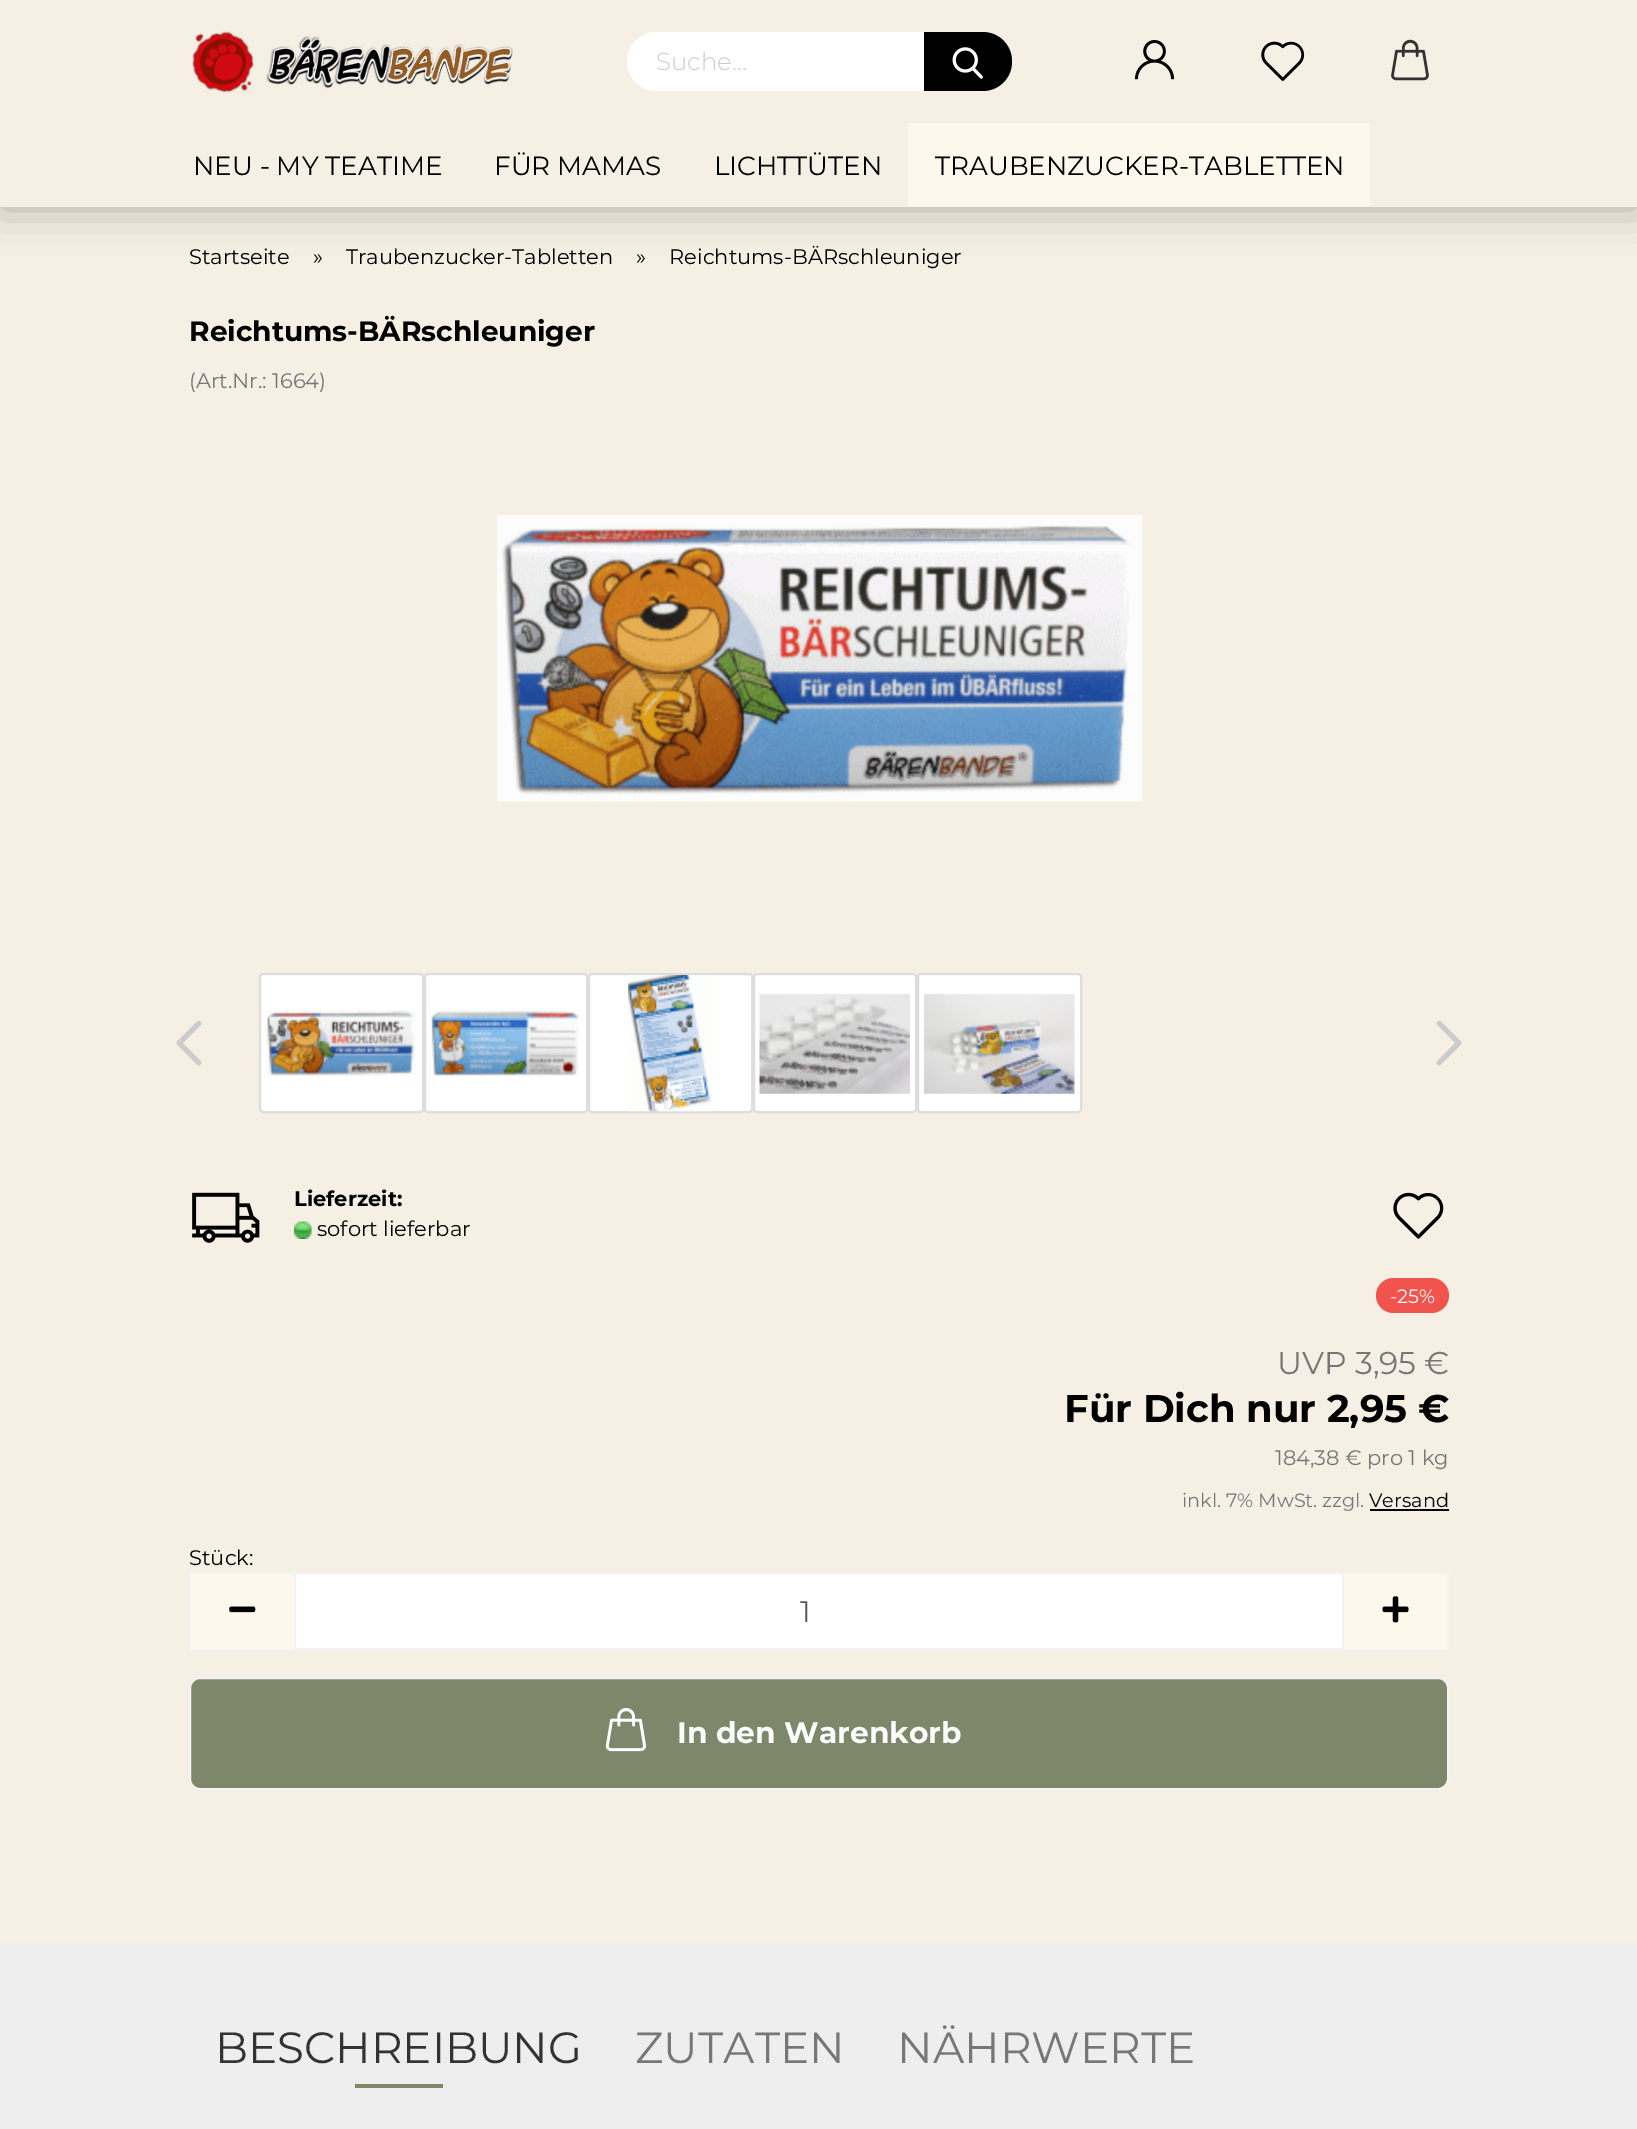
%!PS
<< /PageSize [1637 2129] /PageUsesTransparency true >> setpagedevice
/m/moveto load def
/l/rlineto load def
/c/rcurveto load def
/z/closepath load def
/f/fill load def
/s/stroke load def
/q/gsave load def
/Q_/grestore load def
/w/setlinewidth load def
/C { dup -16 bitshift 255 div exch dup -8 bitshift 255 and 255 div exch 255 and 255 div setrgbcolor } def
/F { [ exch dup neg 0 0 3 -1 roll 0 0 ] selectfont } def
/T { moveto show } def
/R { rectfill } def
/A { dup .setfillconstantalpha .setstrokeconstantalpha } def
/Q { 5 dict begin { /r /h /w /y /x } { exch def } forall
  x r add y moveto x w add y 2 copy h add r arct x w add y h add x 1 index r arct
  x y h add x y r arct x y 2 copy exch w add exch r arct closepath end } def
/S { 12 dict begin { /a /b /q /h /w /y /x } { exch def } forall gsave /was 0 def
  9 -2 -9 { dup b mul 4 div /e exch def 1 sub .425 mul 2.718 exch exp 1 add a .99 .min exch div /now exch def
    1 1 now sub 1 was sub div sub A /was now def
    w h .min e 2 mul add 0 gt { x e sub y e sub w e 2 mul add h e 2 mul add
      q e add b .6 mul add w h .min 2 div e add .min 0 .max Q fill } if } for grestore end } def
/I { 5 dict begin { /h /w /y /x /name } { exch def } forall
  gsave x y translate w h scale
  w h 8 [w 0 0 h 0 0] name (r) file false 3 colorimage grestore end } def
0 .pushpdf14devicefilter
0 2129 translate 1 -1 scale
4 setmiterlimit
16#F6EFE3 C
0 0 1637 2129 R
16#000000 C
0 0 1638 207 0 22 .3 S
16#F6EFE3 C
0 0 1637 207 R
(1.rgb) 192 31 321 62 I
16#FFFFFF C
629 34 381 55 27.5 Q q f Q_
4 w
s
/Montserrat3-Thin 24.5 F
16#CCCCCC C
(Suche...) 656 70 T
16#000000 C
924 32 m 58.5 0 l 16.5 0 29.5 13 29.5 29.5 c 0 16.5 -13 29.5 -29.5 29.5 c -58.5 0 l z f
(2.rgb) 952 47 31 32 I
(3.rgb) 1134 39 41 41 I
(4.rgb) 1261 41 44 40 I
(5.rgb) 1391 39 38 42 I
/Montserrat-Thin 26.25 F
(NEU - MY TEATIME) 193 175 T
(FÜR MAMAS) 494 175 T
(LICHTTÜTEN) 714 175 T
16#FEF8EC C
908 123 462 84 R
16#000000 C
(TRAUBENZUCKER-TABLETTEN) 935 175 T
/Montserrat-Thin 21 F
(Startseite) 189 264 T
(») 313 264 T
(Traubenzucker-Tabletten) 346 264 T
(») 636 264 T
(Reichtums-BÄRschleuniger) 669 264 T
/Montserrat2-Thin 28 F
(Reichtums-BÄRschleuniger) 189 341 T
/Montserrat-Thin 21 F
16#777777 C
(\(Art.Nr.: 1664\)) 189 388 T
(6.rgb) 496 515 647 287 I
(7.rgb) 176 1020 26 46 I
16#FFFFFF C
260 974 163 138 3 Q q f Q_
16#DDDDDD C
2 w
s
(8.rgb) 266 1010 150 66 I
16#FFFFFF C
425 974 162 138 3 Q q f Q_
16#DDDDDD C
s
(9.rgb) 430 1010 150 67 I
16#FFFFFF C
589 974 163 138 3 Q q f Q_
16#DDDDDD C
s
(10.rgb) 628 975 84 137 I
16#FFFFFF C
754 974 162 138 3 Q q f Q_
16#DDDDDD C
s
(11.rgb) 759 993 151 101 I
16#FFFFFF C
918 974 163 138 3 Q q f Q_
16#DDDDDD C
s
(12.rgb) 924 993 151 101 I
(13.rgb) 1436 1020 26 46 I
(14.rgb) 192 1192 68 51 I
/Montserrat2-Thin 21 F
16#000000 C
(Lieferzeit:) 294 1206 T
(15.rgb) 294 1221 18 18 I
/Montserrat-Thin 21 F
(sofort lieferbar) 317 1236 T
(16.rgb) 1393 1192 51 47 I
16#F1544D C
1376 1278 73 35 17.5 Q f
/Montserrat-Thin 19.25 F
16#FFFFFF C
(-25%) 1390 1303 T
/Montserrat-Thin 31.5 F
16#777777 C
(UVP 3,95 €) 1277 1374 T
/Montserrat2-Thin 38.5 F
16#000000 C
(Für Dich nur 2,95 €) 1064 1422 T
/Montserrat-Thin 21 F
16#777777 C
(184,38 € pro 1 kg) 1275 1465 T
/Montserrat-Thin 19.25 F
(inkl. 7% MwSt. zzgl.) 1182 1507 T
16#000000 C
(Versand) 1369 1507 T
1370 1509 79 2 R
/Montserrat-Thin 21 F
(Stück:) 189 1565 T
16#FEF8EC C
191 1574 103 75 R
16#F3F3F3 C
189 1572 105 2 R
189 1649 105 2 R
189 1572 2 78 R
(17.rgb) 229 1606 27 7 I
16#FFFFFF C
295 1573 m 1048 0 l 0 76 l -1048 0 l z q f Q_
16#F3F3F3 C
s
/Montserrat-Thin 29.75 F
16#555555 C
(1) 800 1622 T
16#FEF8EC C
1344 1574 103 75 R
16#F3F3F3 C
1344 1572 105 2 R
1447 1572 2 78 R
1344 1649 105 2 R
(18.rgb) 1382 1596 27 27 I
16#7F876A C
190 1678 1258 111 10 Q q f Q_
16#F3F3F3 C
s
(19.rgb) 605 1708 42 44 I
/Montserrat2-Thin 29.75 F
16#FFFFFF C
(In den Warenkorb) 677 1743 T
16#EEEEEE C
0 1943 1637 186 R
/Montserrat-Thin 43.75 F
16#333333 C
(BESCHREIBUNG) 215 2063 T
16#7F876A C
355 2084 88 4 R
16#777777 C
(ZUTATEN) 635 2063 T
(NÄHRWERTE) 897 2063 T
.poppdf14devicefilter showpage
